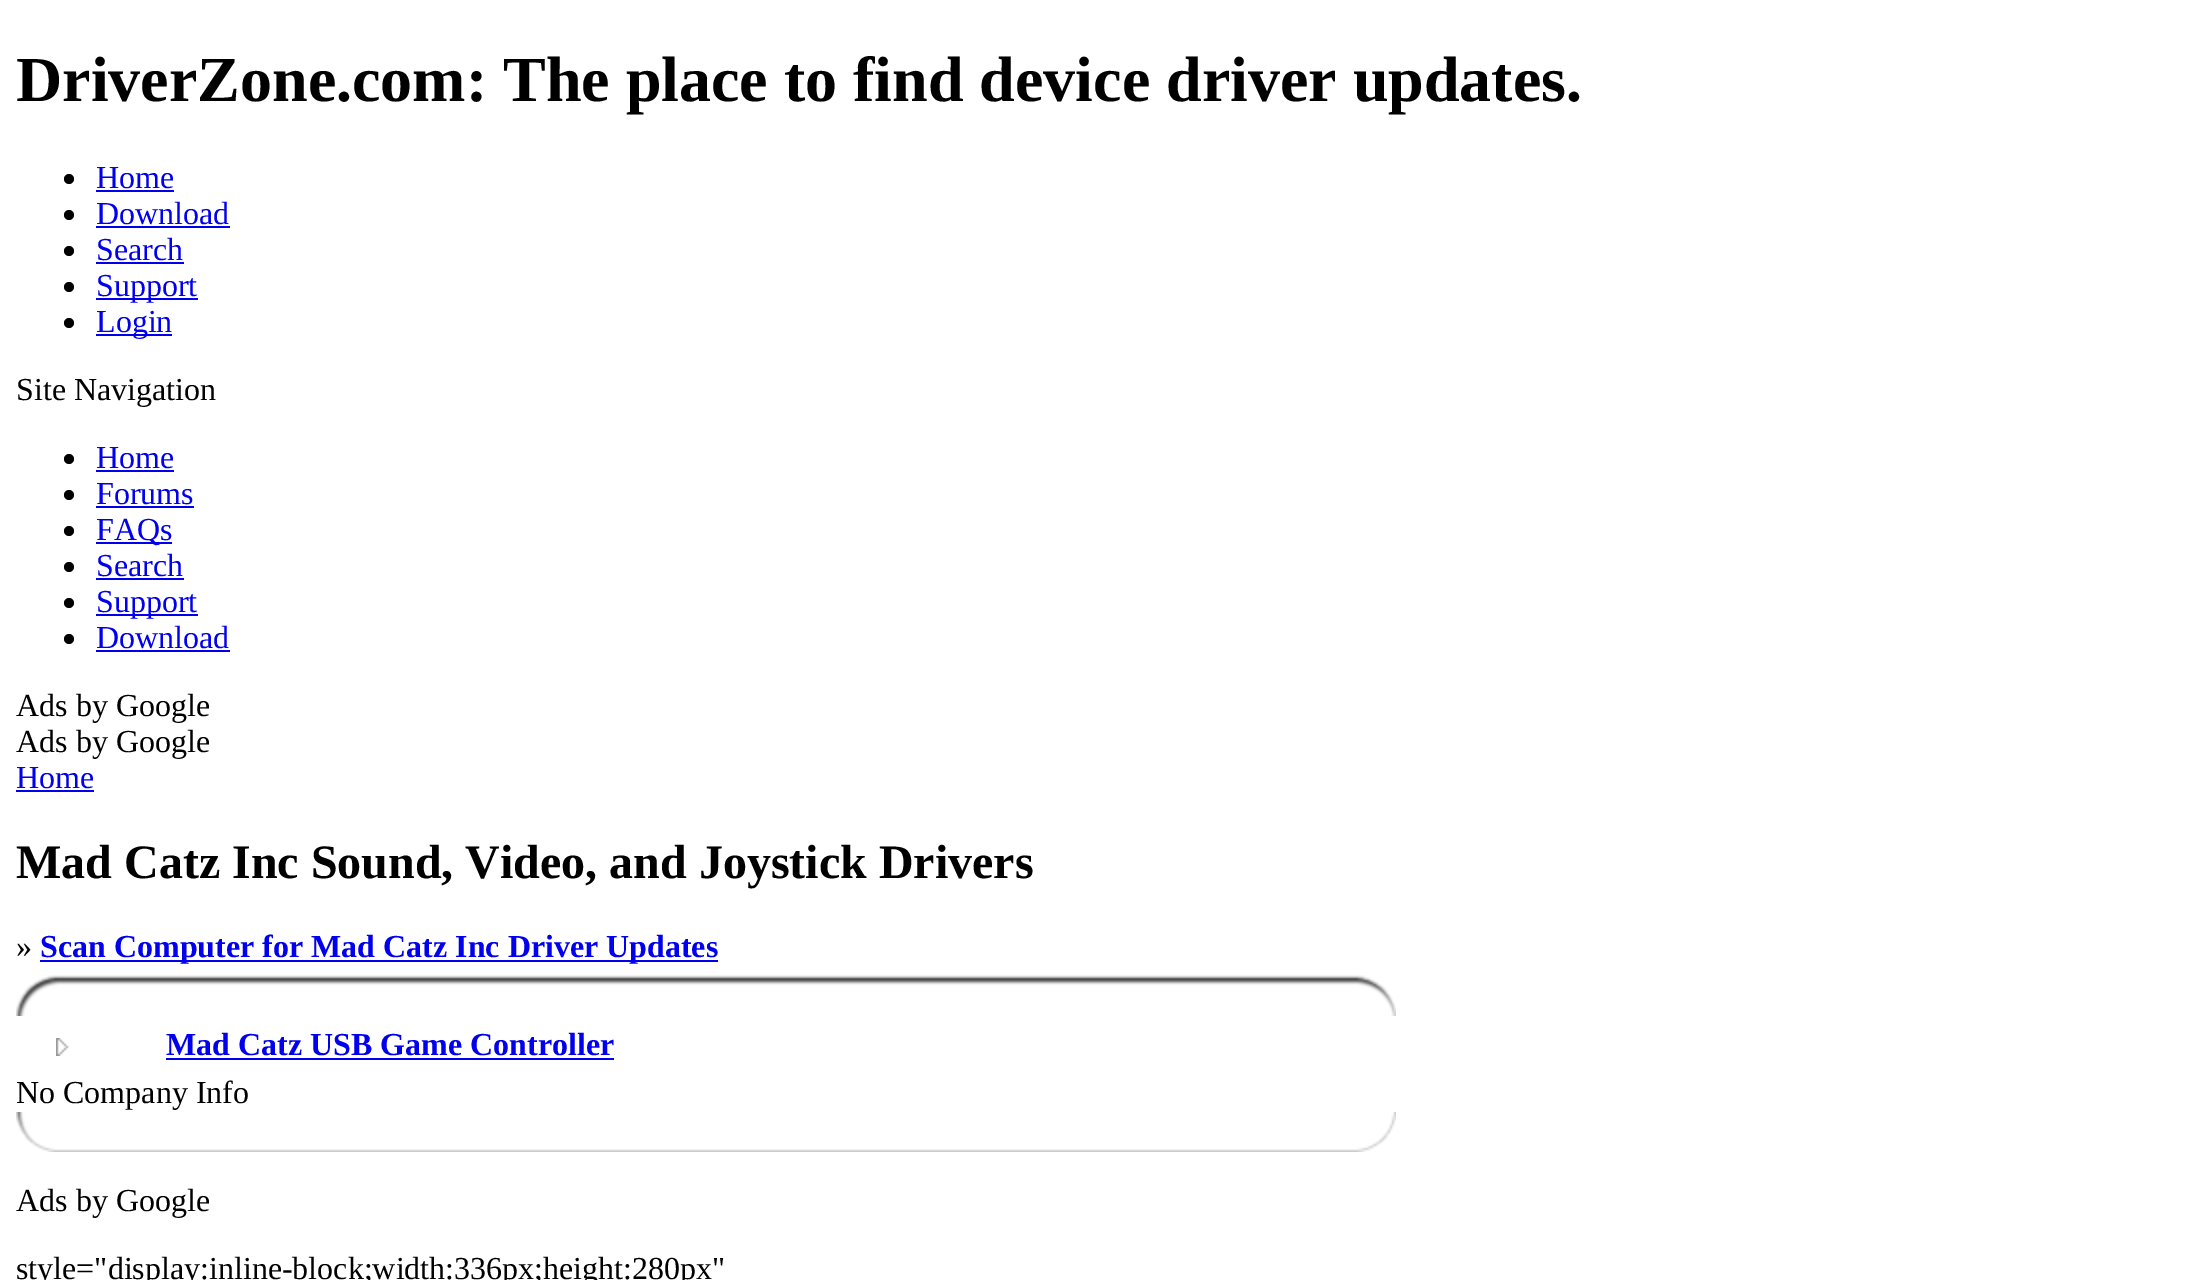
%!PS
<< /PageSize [2212 1280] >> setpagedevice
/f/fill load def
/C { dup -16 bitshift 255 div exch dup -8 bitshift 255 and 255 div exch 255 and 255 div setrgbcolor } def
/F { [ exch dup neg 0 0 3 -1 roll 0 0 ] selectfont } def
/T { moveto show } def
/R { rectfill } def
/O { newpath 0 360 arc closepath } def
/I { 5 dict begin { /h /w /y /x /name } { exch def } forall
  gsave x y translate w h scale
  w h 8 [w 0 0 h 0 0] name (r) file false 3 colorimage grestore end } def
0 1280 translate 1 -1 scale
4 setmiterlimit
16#FFFFFF C
0 0 2212 1280 R
/LiberationSerif-Bold 64 F
16#000000 C
(DriverZone.com: The place to find device driver updates.) 16 101 T
69 179 5 O f
/LiberationSerif-Regular 32 F
16#0000EE C
(Home) 96 188 T
96 190 78 2 R
16#000000 C
69 215 5 O f
16#0000EE C
(Download) 96 224 T
96 226 134 2 R
16#000000 C
69 251 5 O f
16#0000EE C
(Search) 96 260 T
96 262 88 2 R
16#000000 C
69 287 5 O f
16#0000EE C
96 298 102 2 R
(Support) 96 296 T
16#000000 C
69 323 5 O f
16#0000EE C
96 334 76 2 R
(Login) 96 332 T
16#000000 C
(Site Navigation) 16 400 T
69 459 5 O f
16#0000EE C
(Home) 96 468 T
96 470 78 2 R
16#000000 C
69 495 5 O f
16#0000EE C
(Forums) 96 504 T
96 506 98 2 R
16#000000 C
69 531 5 O f
16#0000EE C
96 542 76 2 R
(FAQs) 96 540 T
16#000000 C
69 567 5 O f
16#0000EE C
(Search) 96 576 T
96 578 88 2 R
16#000000 C
69 603 5 O f
16#0000EE C
96 614 102 2 R
(Support) 96 612 T
16#000000 C
69 639 5 O f
16#0000EE C
(Download) 96 648 T
96 650 134 2 R
16#000000 C
(Ads by Google) 16 716 T
(Ads by Google) 16 752 T
16#0000EE C
(Home) 16 788 T
16 790 78 2 R
/LiberationSerif-Bold 48 F
16#000000 C
(Mad Catz Inc Sound, Video, and Joystick Drivers) 16 878 T
/LiberationSerif-Regular 32 F
(») 16 957 T
16#0000EE C
40 960 678 2 R
/LiberationSerif-Bold 32 F
(Scan Computer for Mad Catz Inc Driver Updates) 40 957 T
(1.rgb) 16 975 1380 41 I
(2.rgb) 56 1038 13 18 I
(Mad Catz USB Game Controller) 166 1055 T
166 1058 448 2 R
/LiberationSerif-Regular 32 F
16#000000 C
(No Company Info) 16 1103 T
(3.rgb) 16 1112 1380 40 I
(Ads by Google) 16 1211 T
(style="display:inline-block;width:336px;height:280px") 16 1279 T
showpage
